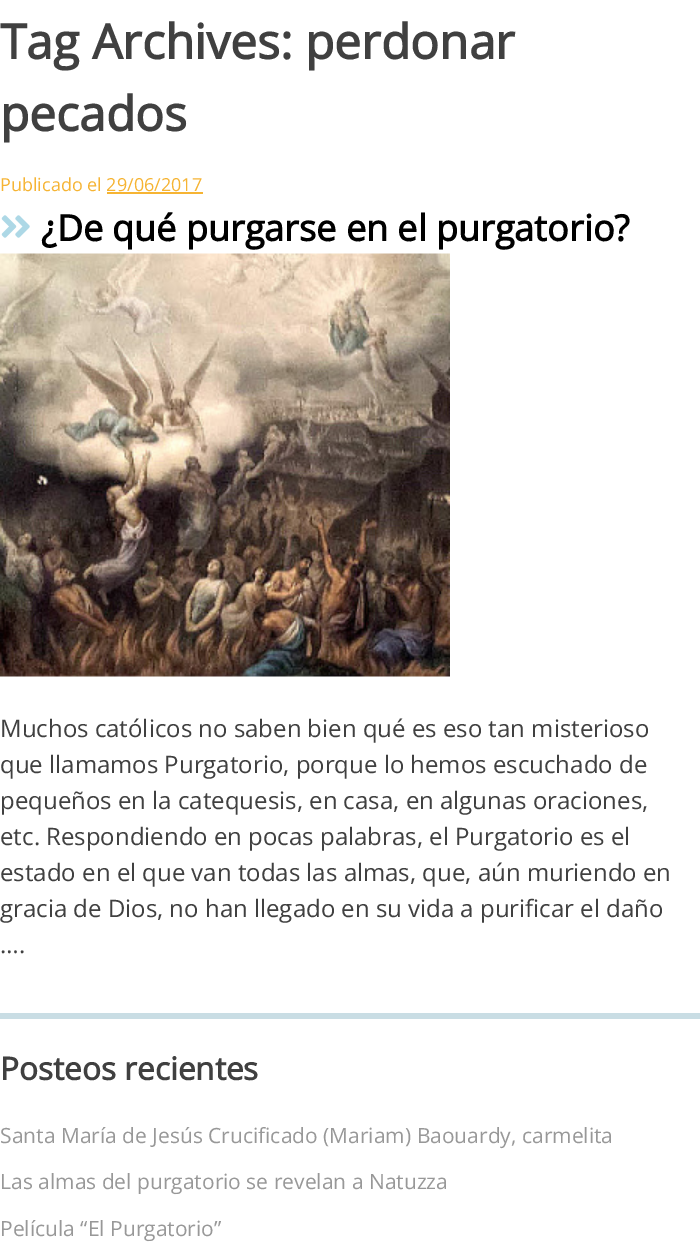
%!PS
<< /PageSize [700 1250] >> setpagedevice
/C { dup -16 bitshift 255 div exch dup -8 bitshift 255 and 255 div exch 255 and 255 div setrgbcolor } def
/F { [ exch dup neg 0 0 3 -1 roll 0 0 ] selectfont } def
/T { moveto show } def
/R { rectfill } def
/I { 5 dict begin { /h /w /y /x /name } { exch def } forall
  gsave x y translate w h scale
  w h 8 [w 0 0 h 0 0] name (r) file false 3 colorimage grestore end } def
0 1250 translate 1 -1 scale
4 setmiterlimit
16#FFFFFF C
0 0 700 1250 R
/OpenSans-Bold 48 F
16#404040 C
(Tag Archives: perdonar) 0 59 T
(pecados) 0 131 T
16#C9DDE4 C
0 1013 700 6 R
/OpenSans-Regular 18 F
16#F6B433 C
(Publicado el 29/06/2017) 0 191 T
107 192 96 2 R
(1.rgb) 1 215 29 23 I
/OpenSans-Bold 36 F
16#000000 C
(¿De qué purgarse en el purgatorio?) 41 241 T
(2.rgb) 0 253 450 424 I
/OpenSans-Regular 24 F
16#404040 C
(Muchos católicos no saben bien qué es eso tan misterioso) 0 737 T
(que llamamos Purgatorio, porque lo hemos escuchado de) 0 773 T
(pequeños en la catequesis, en casa, en algunas oraciones,) 0 809 T
(etc. Respondiendo en pocas palabras, el Purgatorio es el) 0 845 T
(estado en el que van todas las almas, que, aún muriendo en) 0 881 T
(gracia de Dios, no han llegado en su vida a purificar el daño) 0 917 T
(….) 0 953 T
/OpenSans-Bold 31.5 F
(Posteos recientes) 0 1080 T
/OpenSans-Regular 21 F
16#989898 C
(Santa María de Jesús Crucificado \(Mariam\) Baouardy, carmelita) 0 1143 T
(Las almas del purgatorio se revelan a Natuzza) 0 1189 T
(Película “El Purgatorio”) 0 1236 T
showpage
